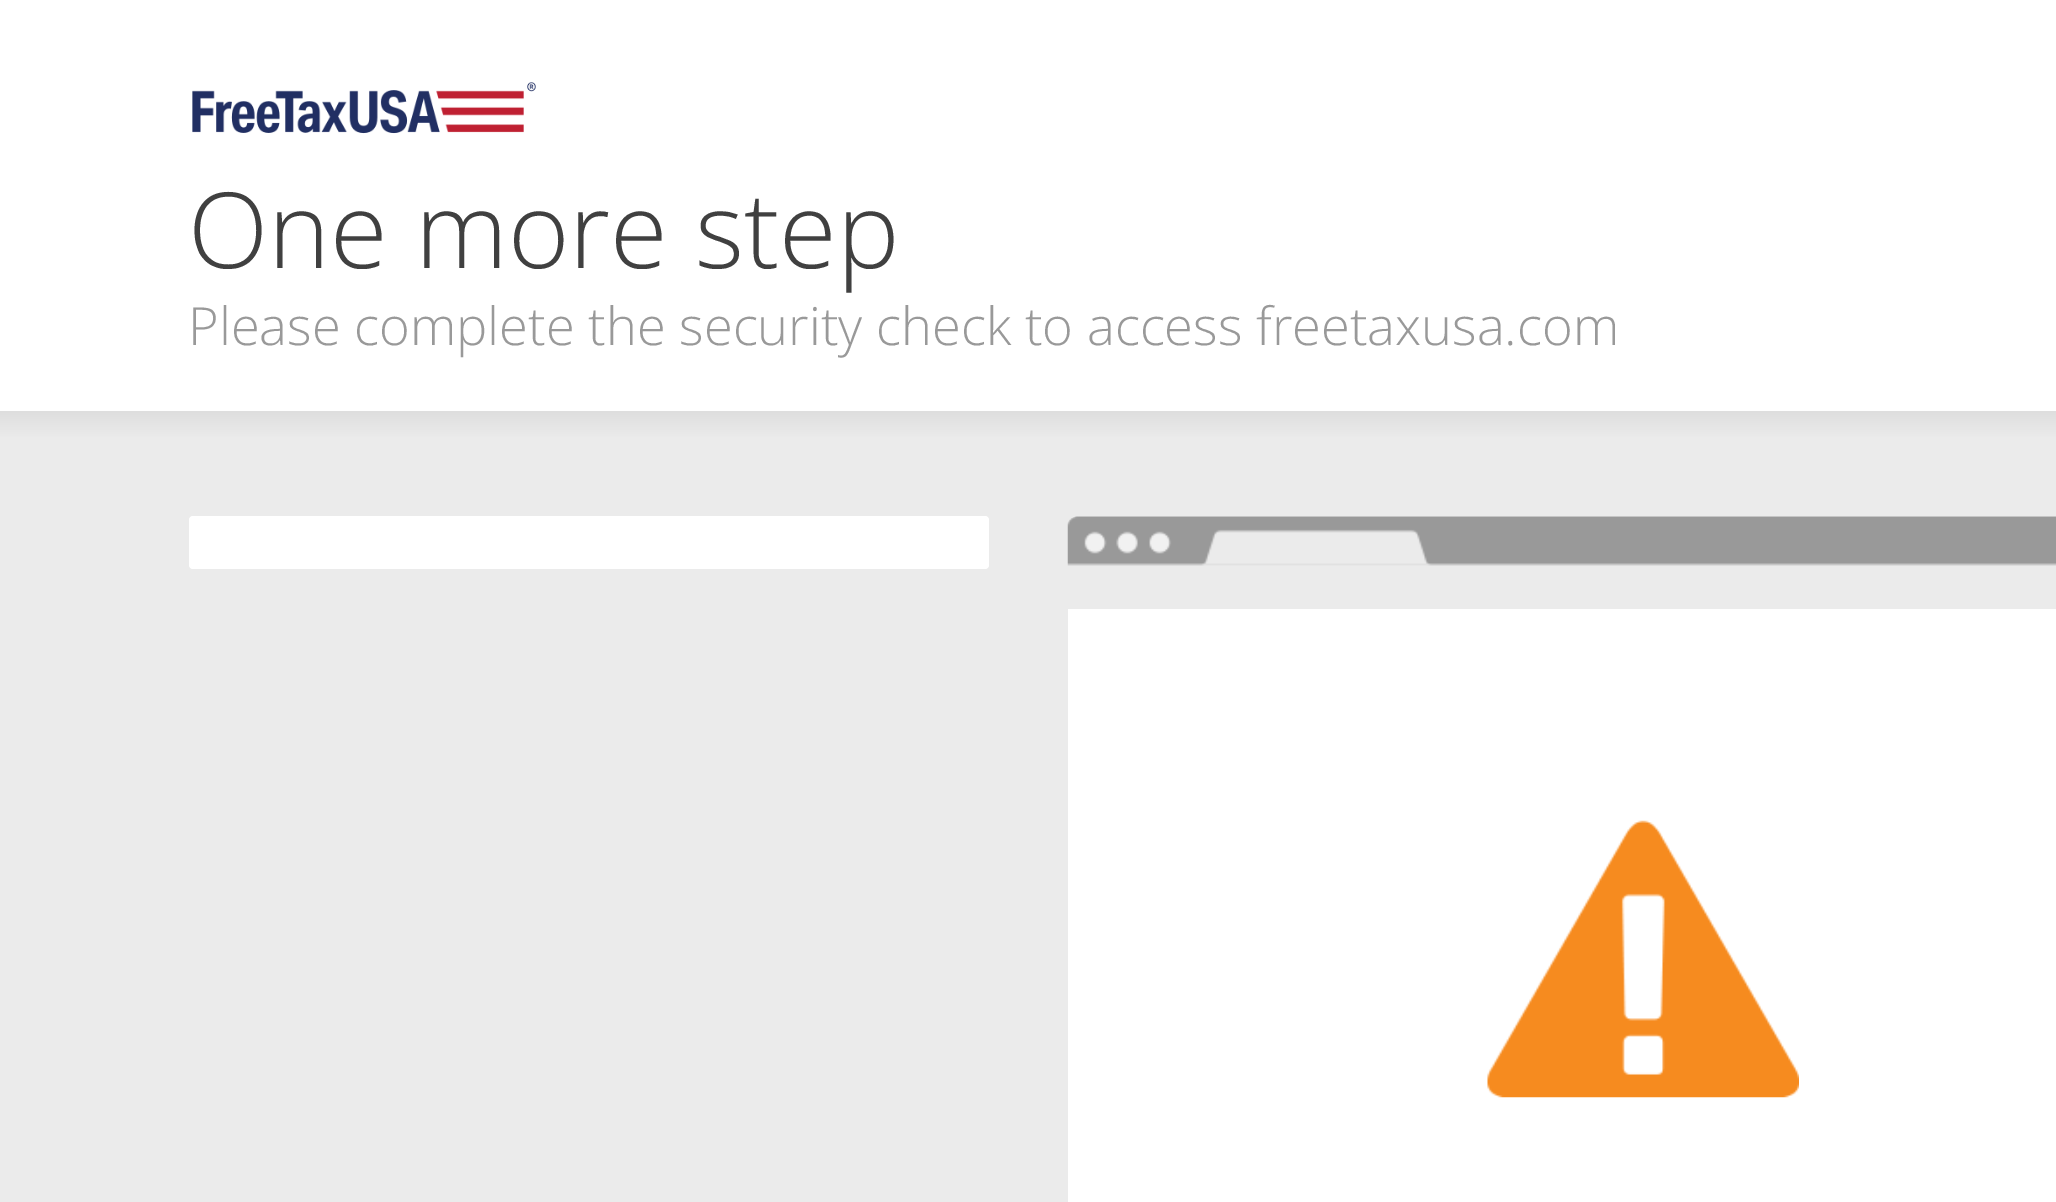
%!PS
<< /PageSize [2056 1202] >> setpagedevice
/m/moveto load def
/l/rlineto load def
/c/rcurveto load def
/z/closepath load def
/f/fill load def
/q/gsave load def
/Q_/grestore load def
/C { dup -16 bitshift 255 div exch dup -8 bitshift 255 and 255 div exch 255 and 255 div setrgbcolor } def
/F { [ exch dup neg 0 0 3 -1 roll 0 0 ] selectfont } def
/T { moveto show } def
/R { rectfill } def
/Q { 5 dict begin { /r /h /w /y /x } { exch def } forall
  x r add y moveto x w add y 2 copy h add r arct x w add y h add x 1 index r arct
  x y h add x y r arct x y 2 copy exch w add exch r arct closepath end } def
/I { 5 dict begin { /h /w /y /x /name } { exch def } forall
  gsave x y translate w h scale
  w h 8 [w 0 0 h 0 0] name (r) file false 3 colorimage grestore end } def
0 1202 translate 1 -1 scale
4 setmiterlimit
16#FFFFFF C
0 0 2056 1202 R
(1.rgb) 192 82 344 52 I
/OpenSans-Light 105 F
16#404040 C
(One more step) 188 268 T
/OpenSans-Light 52.5 F
16#999999 C
(Please complete the security check to access freetaxusa.com) 188 345 T
q 0 411 m 2056 0 l 0 791 l -2056 0 l z clip newpath
<< /ShadingType 2 /ColorSpace /DeviceRGB /Coords [1028 411 1028 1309] /Extend [true true] /Function << /FunctionType 3 /Domain [0 1] /Functions [<< /FunctionType 2 /Domain [0 1] /C0 [.871 .871 .871] /C1 [.922 .922 .922] /N 1 >> << /FunctionType 2 /Domain [0 1] /C0 [.922 .922 .922] /C1 [.922 .922 .922] /N 1 >> << /FunctionType 2 /Domain [0 1] /C0 [.922 .922 .922] /C1 [.871 .871 .871] /N 1 >>] /Bounds [.03 .97] /Encode [0 1 0 1 0 1] >> >> shfill Q_
16#FFFFFF C
189 516 800 53 4 Q f
1077 516 m 979 0 l 0 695 l -988 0 l 0 -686 l 0 -5 4 -9 9 -9 c z f
(2.rgb) 1067 516 989 93 I
(3.rgb) 1487 820 312 278 I
showpage
